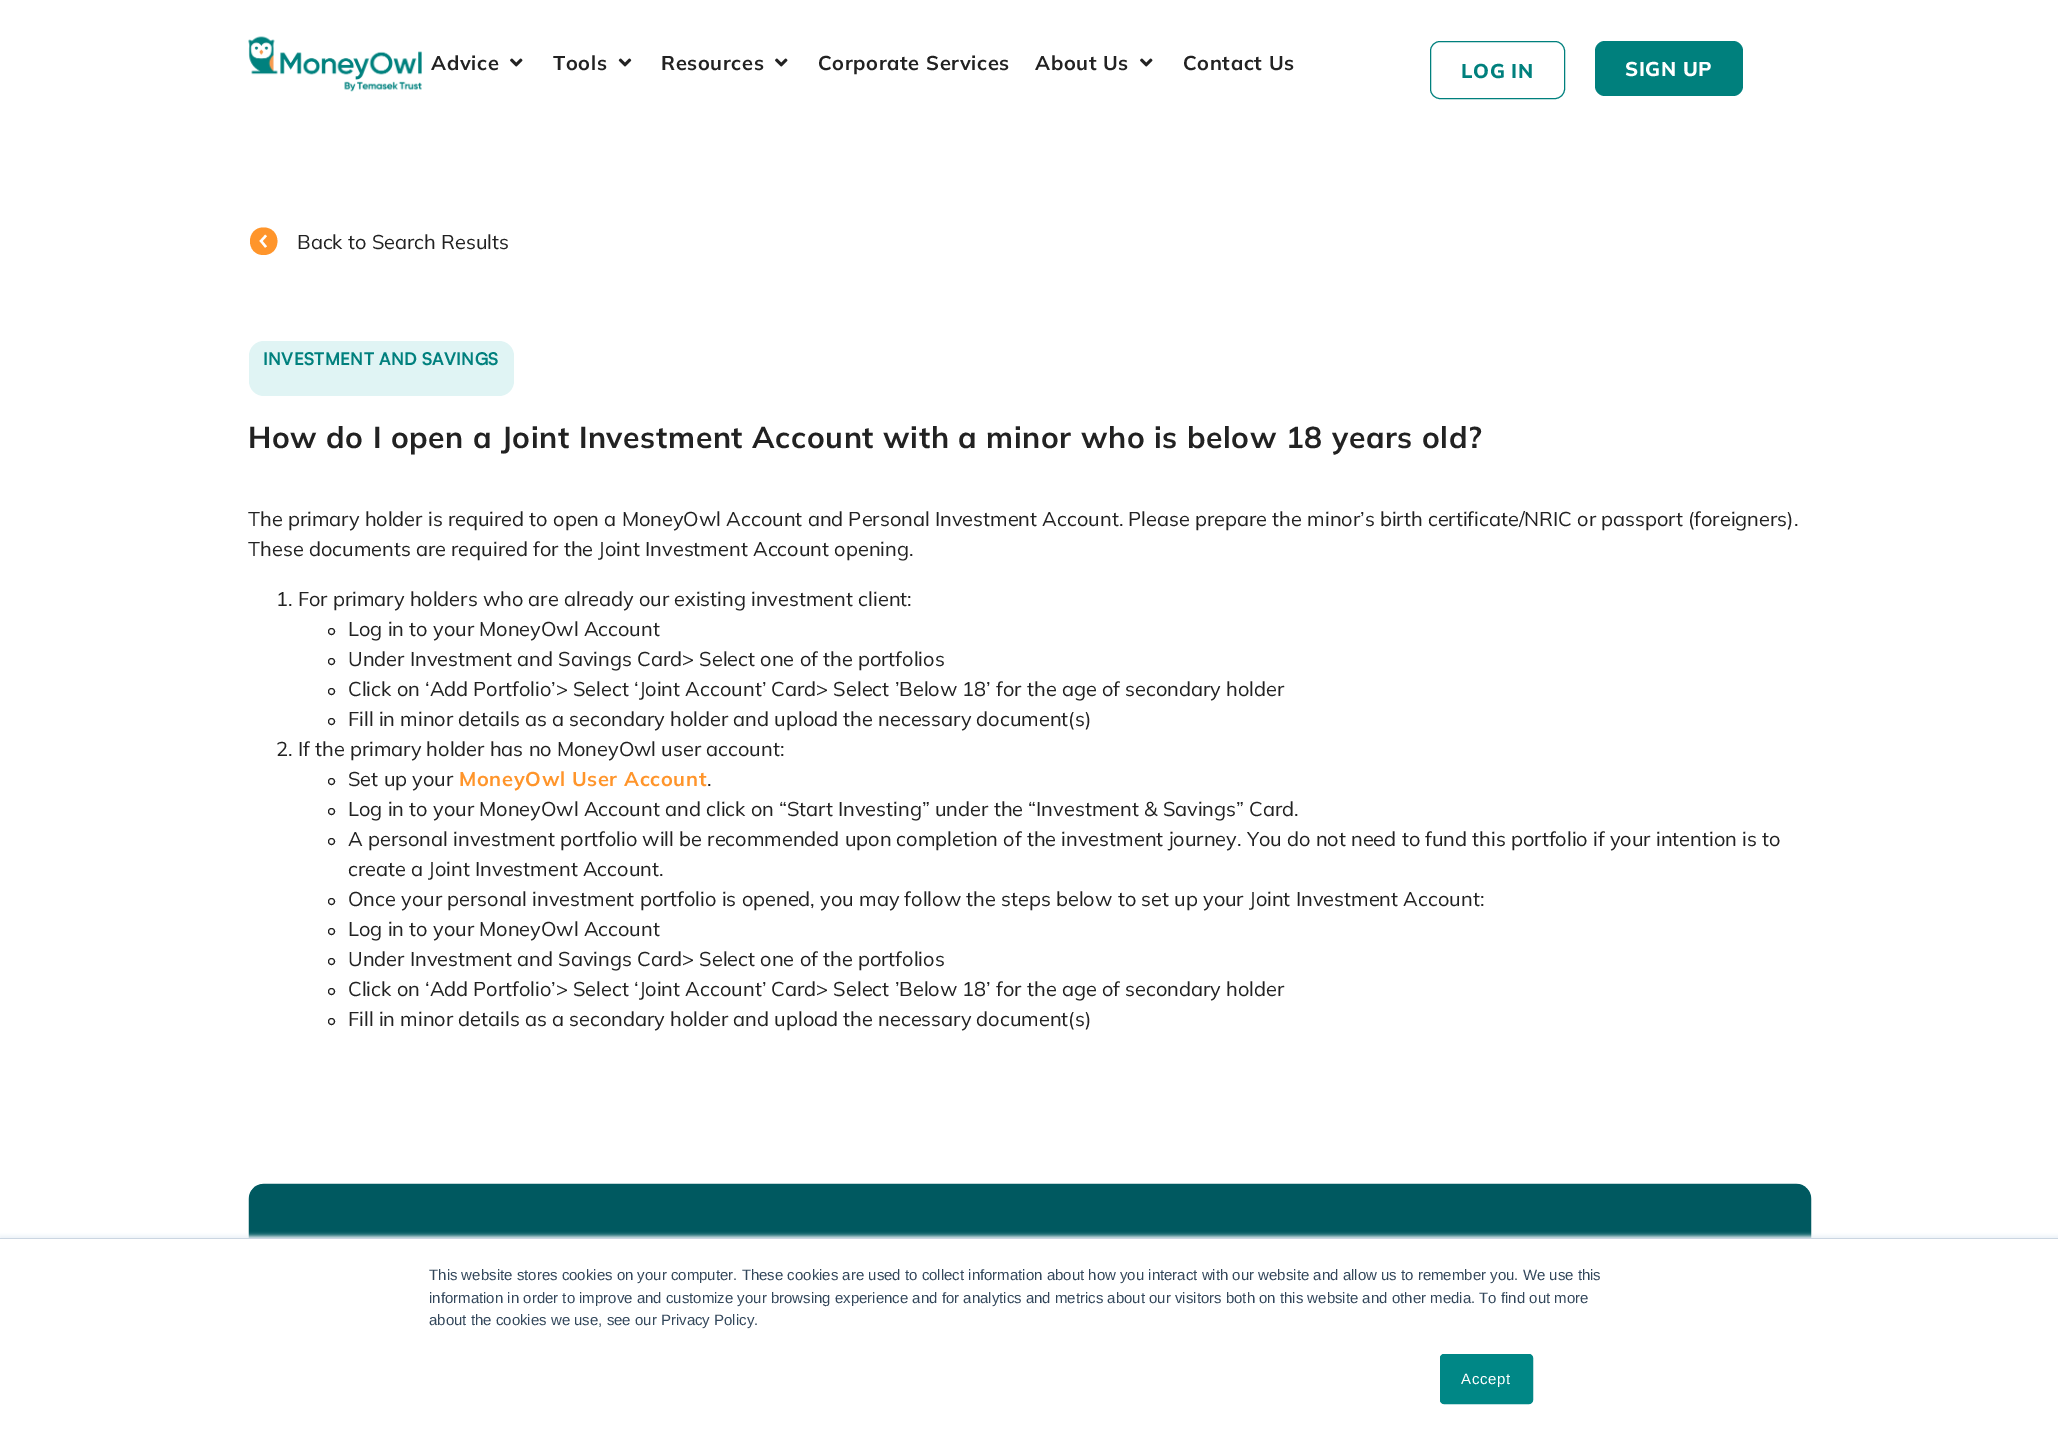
%!PS
<< /PageSize [2058 1436] /PageUsesTransparency true >> setpagedevice
/m/moveto load def
/l/rlineto load def
/c/rcurveto load def
/z/closepath load def
/f/fill load def
/s/stroke load def
/q/gsave load def
/Q_/grestore load def
/w/setlinewidth load def
/C { dup -16 bitshift 255 div exch dup -8 bitshift 255 and 255 div exch 255 and 255 div setrgbcolor } def
/F { [ exch dup neg 0 0 3 -1 roll 0 0 ] selectfont } def
/T { moveto show } def
/R { rectfill } def
/A { dup .setfillconstantalpha .setstrokeconstantalpha } def
/O { newpath 0 360 arc closepath } def
/Q { 5 dict begin { /r /h /w /y /x } { exch def } forall
  x r add y moveto x w add y 2 copy h add r arct x w add y h add x 1 index r arct
  x y h add x y r arct x y 2 copy exch w add exch r arct closepath end } def
/S { 12 dict begin { /a /b /q /h /w /y /x } { exch def } forall gsave /was 0 def
  9 -2 -9 { dup b mul 4 div /e exch def 1 sub .425 mul 2.718 exch exp 1 add a .99 .min exch div /now exch def
    1 1 now sub 1 was sub div sub A /was now def
    w h .min e 2 mul add 0 gt { x e sub y e sub w e 2 mul add h e 2 mul add
      q e add b .6 mul add w h .min 2 div e add .min 0 .max Q fill } if } for grestore end } def
/I { 5 dict begin { /h /w /y /x /name } { exch def } forall
  gsave x y translate w h scale
  w h 8 [w 0 0 h 0 0] name (r) file false 3 colorimage grestore end } def
0 .pushpdf14devicefilter
0 1436 translate 1 -1 scale
4 setmiterlimit
16#FFFFFF C
0 0 2058 1436 R
(1.rgb) 248 36 174 56 I
/Mulish-Bold 20 F
16#222222 C
431 70 m .62 0 (Advice) ashow
(2.rgb) 510 58 13 9 I
553 70 m .62 0 (Tools) ashow
(3.rgb) 618 58 14 9 I
661 70 m .62 0 (Resources) ashow
(2.rgb) 775 58 13 9 I
818 70 m .62 0 (Corporate Services) ashow
1035 70 m .62 0 (About Us) ashow
(2.rgb) 1140 58 13 9 I
1183 70 m .62 0 (Contact Us) ashow
16#00807D C
1430.5 41.5 134 57 9.5 Q s
/Mulish-ExtraBold 20 F
1461 78 m .62 0 (LOG IN) ashow
1595 41 148 55 10 Q f
16#FFFFFF C
1625 76 m .62 0 (SIGN UP) ashow
16#FF952B C
263.5 227.5 m -18 0 -18 27.5 0 27.5 c 18.5 0 18.5 -27.5 0 -27.5 c z f
16#FFFFFF C
2.3 w
266 247 m -5 -6 l 5 -5.5 l s
/Mulish-Regular 20 F
16#222222 C
(Back to Search Results) 297 249 T
16#E0F4F4 C
249 341 265 55 15 Q f
/Satoshi-Bold 17.5 F
16#00807D C
(INVESTMENT AND SAVINGS) 263 365 T
/Mulish-Bold 30 F
16#222222 C
248 448 m .62 0 (How do I open a Joint Investment Account with a minor who is below 18 years old?) ashow
/Mulish-Regular 20 F
(The primary holder is required to open a MoneyOwl Account and Personal Investment Account. Please prepare the minor’s birth certificate/NRIC or passport \(foreigners\).) 248 526 T
(These documents are required for the Joint Investment Account opening.) 248 556 T
(1. For primary holders who are already our existing investment client:) 276 606 T
1 w
331.5 631.5 3 O s
(Log in to your MoneyOwl Account) 348 636 T
331.5 661.5 3 O s
(Under Investment and Savings Card> Select one of the portfolios) 348 666 T
331.5 691.5 3 O s
(Click on ‘Add Portfolio’> Select ‘Joint Account’ Card> Select ’Below 18’ for the age of secondary holder) 348 696 T
331.5 721.5 3 O s
(Fill in minor details as a secondary holder and upload the necessary document\(s\)) 348 726 T
(2. If the primary holder has no MoneyOwl user account:) 276 756 T
331.5 781.5 3 O s
(Set up your) 348 786 T
/Mulish-Bold 20 F
16#FF952B C
459 786 m .62 0 (MoneyOwl User Account) ashow
/Mulish-Regular 20 F
16#222222 C
(.) 707 786 T
331.5 811.5 3 O s
(Log in to your MoneyOwl Account and click on “Start Investing” under the “Investment & Savings” Card.) 348 816 T
331.5 841.5 3 O s
(A personal investment portfolio will be recommended upon completion of the investment journey. You do not need to fund this portfolio if your intention is to) 348 846 T
(create a Joint Investment Account.) 348 876 T
331.5 901.5 3 O s
(Once your personal investment portfolio is opened, you may follow the steps below to set up your Joint Investment Account:) 348 906 T
331.5 931.5 3 O s
(Log in to your MoneyOwl Account) 348 936 T
331.5 961.5 3 O s
(Under Investment and Savings Card> Select one of the portfolios) 348 966 T
331.5 991.5 3 O s
(Click on ‘Add Portfolio’> Select ‘Joint Account’ Card> Select ’Below 18’ for the age of secondary holder) 348 996 T
331.5 1021.5 3 O s
(Fill in minor details as a secondary holder and upload the necessary document\(s\)) 348 1026 T
(4.rgb) 248 1183 1564 55 I
16#EAF0F6 C
0 1236 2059 199 0 2 1 S
16#FFFFFF C
0 1239 2058 197 R
16#CBD6E2 C
0 1238 2058 1 R
/LiberationSans-Regular 15 F
16#33475B C
(This website stores cookies on your computer. These cookies are used to collect information about how you interact with our website and allow us to remember you. We use this) 429 1280 T
(information in order to improve and customize your browsing experience and for analytics and metrics about our visitors both on this website and other media. To find out more) 429 1303 T
(about the cookies we use, see our Privacy Policy.) 429 1325 T
16#008786 C
1440.5 1354.5 92 49 3.5 Q q f Q_
s
16#FFFFFF C
1461 1384 m .62 0 (Accept) ashow
.poppdf14devicefilter showpage
